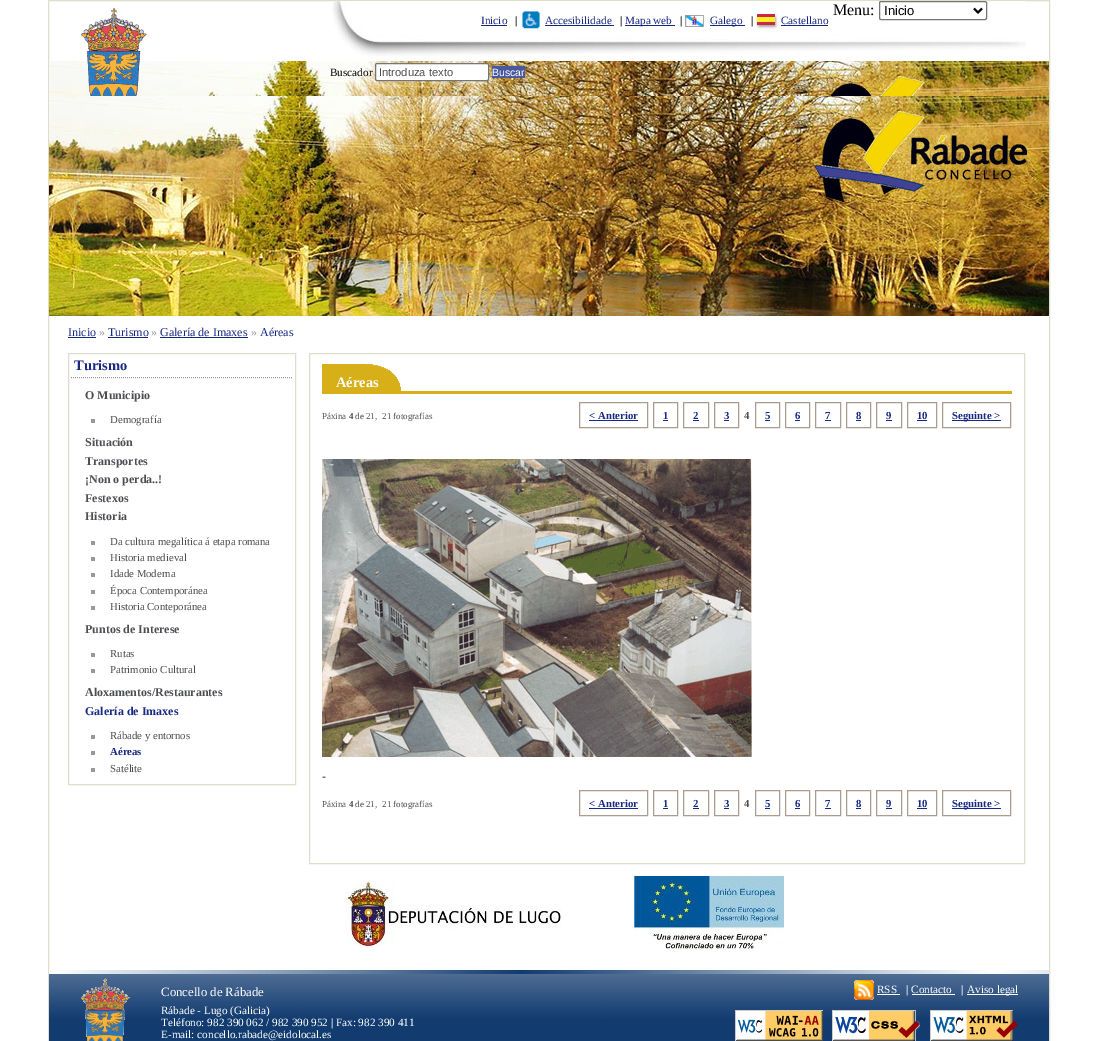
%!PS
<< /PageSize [1097 1041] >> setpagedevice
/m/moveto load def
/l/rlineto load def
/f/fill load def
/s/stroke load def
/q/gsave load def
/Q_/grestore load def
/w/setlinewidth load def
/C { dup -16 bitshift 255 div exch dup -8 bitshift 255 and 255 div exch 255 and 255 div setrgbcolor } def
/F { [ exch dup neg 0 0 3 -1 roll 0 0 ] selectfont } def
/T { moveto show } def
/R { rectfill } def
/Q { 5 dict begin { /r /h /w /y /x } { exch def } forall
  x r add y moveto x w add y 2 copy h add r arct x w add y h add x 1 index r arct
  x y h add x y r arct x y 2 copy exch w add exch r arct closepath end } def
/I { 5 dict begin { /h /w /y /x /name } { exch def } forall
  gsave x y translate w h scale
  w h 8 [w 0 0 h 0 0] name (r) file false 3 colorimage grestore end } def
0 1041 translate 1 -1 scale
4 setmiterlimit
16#FFFFFF C
0 0 1097 1041 R
16#DFDDCB C
48.5 .5 1001 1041 rectstroke
(1.rgb) 49 61 1000 35 I
(2.rgb) 81 8 66 88 I
(3.rgb) 332 1 694 55 I
/LiberationSerif-Regular 16 F
16#000000 C
(Menu:) 833 15 T
16#767676 C
879.5 1.5 107 18 1.5 Q s
16#000000 C
2 w
974 8.5 m 4 4 l 4 -4 l s
/LiberationSans-Regular 13 F
(Inicio) 884 15 T
/LiberationSerif-Regular 11.2 F
16#172983 C
(Inicio) 481 24 T
481 25 26 1 R
16#000000 C
(|) 515 24 T
(4.rgb) 522 11 18 18 I
16#172983 C
(Accesibilidade) 545 24 T
545 25 69 1 R
16#000000 C
(|) 620 24 T
16#172983 C
625 25 50 1 R
(Mapa web) 625 24 T
16#000000 C
(|) 680 24 T
(5.rgb) 685 15 19 12 I
16#172983 C
710 25 35 1 R
(Galego) 710 24 T
16#000000 C
(|) 751 24 T
(6.rgb) 756 14 22 15 I
16#172983 C
(Castellano) 781 24 T
781 25 47 1 R
16#000000 C
(Buscador) 330 76 T
16#FFFFFF C
375.5 63.5 113 17 1.5 Q q f Q_
16#767676 C
1 w
s
/LiberationSans-Regular 11.2 F
16#4D4E53 C
(Introduza texto) 379 76 T
16#4A599E C
492 66 33 12 R
/LiberationSans-Regular 10.5 F
16#FFFFFF C
(Buscar) 492 76 T
(7.rgb) 49 96 1000 220 I
/LiberationSerif-Regular 12 F
16#172983 C
(Inicio) 68 336 T
68 337 28 1 R
16#999999 C
(») 99 336 T
16#172983 C
(Turismo) 108 336 T
108 337 40 1 R
16#999999 C
(») 151 336 T
16#172983 C
(Galería de Imaxes) 160 336 T
160 337 88 1 R
16#999999 C
(») 251 336 T
16#172983 C
(Aéreas) 260 336 T
16#DFDDCB C
68.5 353.5 227 431 rectstroke
16#999999 C
[1 1] 0 setdash
71 377.5 m 221 0 l s
/LiberationSerif-Bold 14.5 F
16#172983 C
(Turismo) 74 370 T
/LiberationSerif-Bold 12 F
16#4D4E53 C
(O Municipio) 85 399 T
16#999999 C
91 419 4 4 R
/LiberationSerif-Regular 10.75 F
16#4D4E53 C
(Demografía) 110 423 T
/LiberationSerif-Bold 12 F
(Situación) 85 446 T
(Transportes) 85 465 T
(¡Non o perda..!) 85 483 T
(Festexos) 85 502 T
(Historia) 85 520 T
16#999999 C
91 541 4 4 R
/LiberationSerif-Regular 10.75 F
16#4D4E53 C
(Da cultura megalítica á etapa romana) 110 545 T
16#999999 C
91 557 4 4 R
16#4D4E53 C
(Historia medieval) 110 561 T
16#999999 C
91 573 4 4 R
16#4D4E53 C
(Idade Moderna) 110 577 T
16#999999 C
91 590 4 4 R
16#4D4E53 C
(Época Contemporánea) 110 594 T
16#999999 C
91 606 4 4 R
16#4D4E53 C
(Historia Conteporánea) 110 610 T
/LiberationSerif-Bold 12 F
(Puntos de Interese) 85 633 T
16#999999 C
91 653 4 4 R
/LiberationSerif-Regular 10.75 F
16#4D4E53 C
(Rutas) 110 657 T
16#999999 C
91 669 4 4 R
16#4D4E53 C
(Patrimonio Cultural) 110 673 T
/LiberationSerif-Bold 12 F
(Aloxamentos/Restaurantes) 85 696 T
16#172983 C
(Galería de Imaxes) 85 715 T
16#999999 C
91 735 4 4 R
/LiberationSerif-Regular 10.75 F
16#4D4E53 C
(Rábade y entornos) 110 739 T
16#999999 C
91 751 4 4 R
/LiberationSerif-Bold 10.75 F
16#172983 C
(Aéreas) 110 755 T
16#999999 C
91 768 4 4 R
/LiberationSerif-Regular 10.75 F
16#4D4E53 C
(Satélite) 110 772 T
16#DFDDCB C
[] 0 setdash
309.5 353.5 715 510 rectstroke
16#D7AF19 C
322 391 690 3 R
322 364 44 27 R
(8.rgb) 366 364 36 27 I
/LiberationSerif-Bold 14.5 F
16#FFFFFF C
(Aéreas) 336 387 T
/LiberationSerif-Regular 9 F
16#4D4E53 C
(Páxina) 322 419 T
/LiberationSerif-Bold 9 F
(4) 349 419 T
/LiberationSerif-Regular 9 F
(de 21,) 355 419 T
(21 fotografías) 382 419 T
16#AB9C8F C
579.5 402.5 68 25 rectstroke
/LiberationSerif-Bold 10.75 F
16#172983 C
(< Anterior) 589 419 T
589 420 49 1 R
16#AB9C8F C
653.5 402.5 24 25 rectstroke
16#172983 C
(1) 663 419 T
663 420 5 1 R
16#AB9C8F C
683.5 402.5 25 25 rectstroke
16#172983 C
(2) 693 419 T
693 420 6 1 R
16#AB9C8F C
714.5 402.5 24 25 rectstroke
16#172983 C
(3) 724 419 T
724 420 5 1 R
16#4D4E53 C
(4) 744 419 T
16#AB9C8F C
755.5 402.5 24 25 rectstroke
16#172983 C
(5) 765 419 T
765 420 5 1 R
16#AB9C8F C
785.5 402.5 24 25 rectstroke
16#172983 C
(6) 795 419 T
795 420 5 1 R
16#AB9C8F C
815.5 402.5 25 25 rectstroke
16#172983 C
(7) 825 419 T
825 420 6 1 R
16#AB9C8F C
846.5 402.5 24 25 rectstroke
16#172983 C
(8) 856 419 T
856 420 5 1 R
16#AB9C8F C
876.5 402.5 25 25 rectstroke
16#172983 C
(9) 886 419 T
886 420 6 1 R
16#AB9C8F C
907.5 402.5 29 25 rectstroke
16#172983 C
(10) 917 419 T
917 420 10 1 R
16#AB9C8F C
942.5 402.5 68 25 rectstroke
16#172983 C
952 420 49 1 R
(Seguinte >) 952 419 T
(9.rgb) 322 459 430 298 I
/LiberationSerif-Regular 12 F
16#000000 C
(-) 322 780 T
/LiberationSerif-Regular 9 F
16#4D4E53 C
(Páxina) 322 807 T
/LiberationSerif-Bold 9 F
(4) 349 807 T
/LiberationSerif-Regular 9 F
(de 21,) 355 807 T
(21 fotografías) 382 807 T
16#AB9C8F C
579.5 790.5 68 25 rectstroke
/LiberationSerif-Bold 10.75 F
16#172983 C
(< Anterior) 589 807 T
589 808 49 1 R
16#AB9C8F C
653.5 790.5 24 25 rectstroke
16#172983 C
(1) 663 807 T
663 808 5 1 R
16#AB9C8F C
683.5 790.5 25 25 rectstroke
16#172983 C
(2) 693 807 T
693 808 6 1 R
16#AB9C8F C
714.5 790.5 24 25 rectstroke
16#172983 C
(3) 724 807 T
724 808 5 1 R
16#4D4E53 C
(4) 744 807 T
16#AB9C8F C
755.5 790.5 24 25 rectstroke
16#172983 C
(5) 765 807 T
765 808 5 1 R
16#AB9C8F C
785.5 790.5 24 25 rectstroke
16#172983 C
(6) 795 807 T
795 808 5 1 R
16#AB9C8F C
815.5 790.5 25 25 rectstroke
16#172983 C
(7) 825 807 T
825 808 6 1 R
16#AB9C8F C
846.5 790.5 24 25 rectstroke
16#172983 C
(8) 856 807 T
856 808 5 1 R
16#AB9C8F C
876.5 790.5 25 25 rectstroke
16#172983 C
(9) 886 807 T
886 808 6 1 R
16#AB9C8F C
907.5 790.5 29 25 rectstroke
16#172983 C
(10) 917 807 T
917 808 10 1 R
16#AB9C8F C
942.5 790.5 68 25 rectstroke
16#172983 C
952 808 49 1 R
(Seguinte >) 952 807 T
(10.rgb) 346 881 216 67 I
(11.rgb) 634 876 150 74 I
(12.rgb) 49 970 1000 71 I
(13.rgb) 81 978 49 63 I
/LiberationSerif-Regular 12.75 F
16#FFFFFF C
(Concello de Rábade) 161 996 T
/LiberationSerif-Regular 11.2 F
(Rábade - Lugo \(Galicia\)) 161 1014 T
(Teléfono: 982 390 062 / 982 390 952 | Fax: 982 390 411) 161 1026 T
(E-mail: concello.rabade@eidolocal.es) 161 1038 T
(14.rgb) 854 980 20 20 I
(RSS) 877 993 T
877 994 23 1 R
(| Contacto) 906 993 T
912 994 43 1 R
(|) 961 993 T
967 994 51 1 R
(Aviso legal) 967 993 T
(15.rgb) 735 1010 88 31 I
(16.rgb) 832 1010 88 31 I
(17.rgb) 930 1010 88 31 I
showpage
